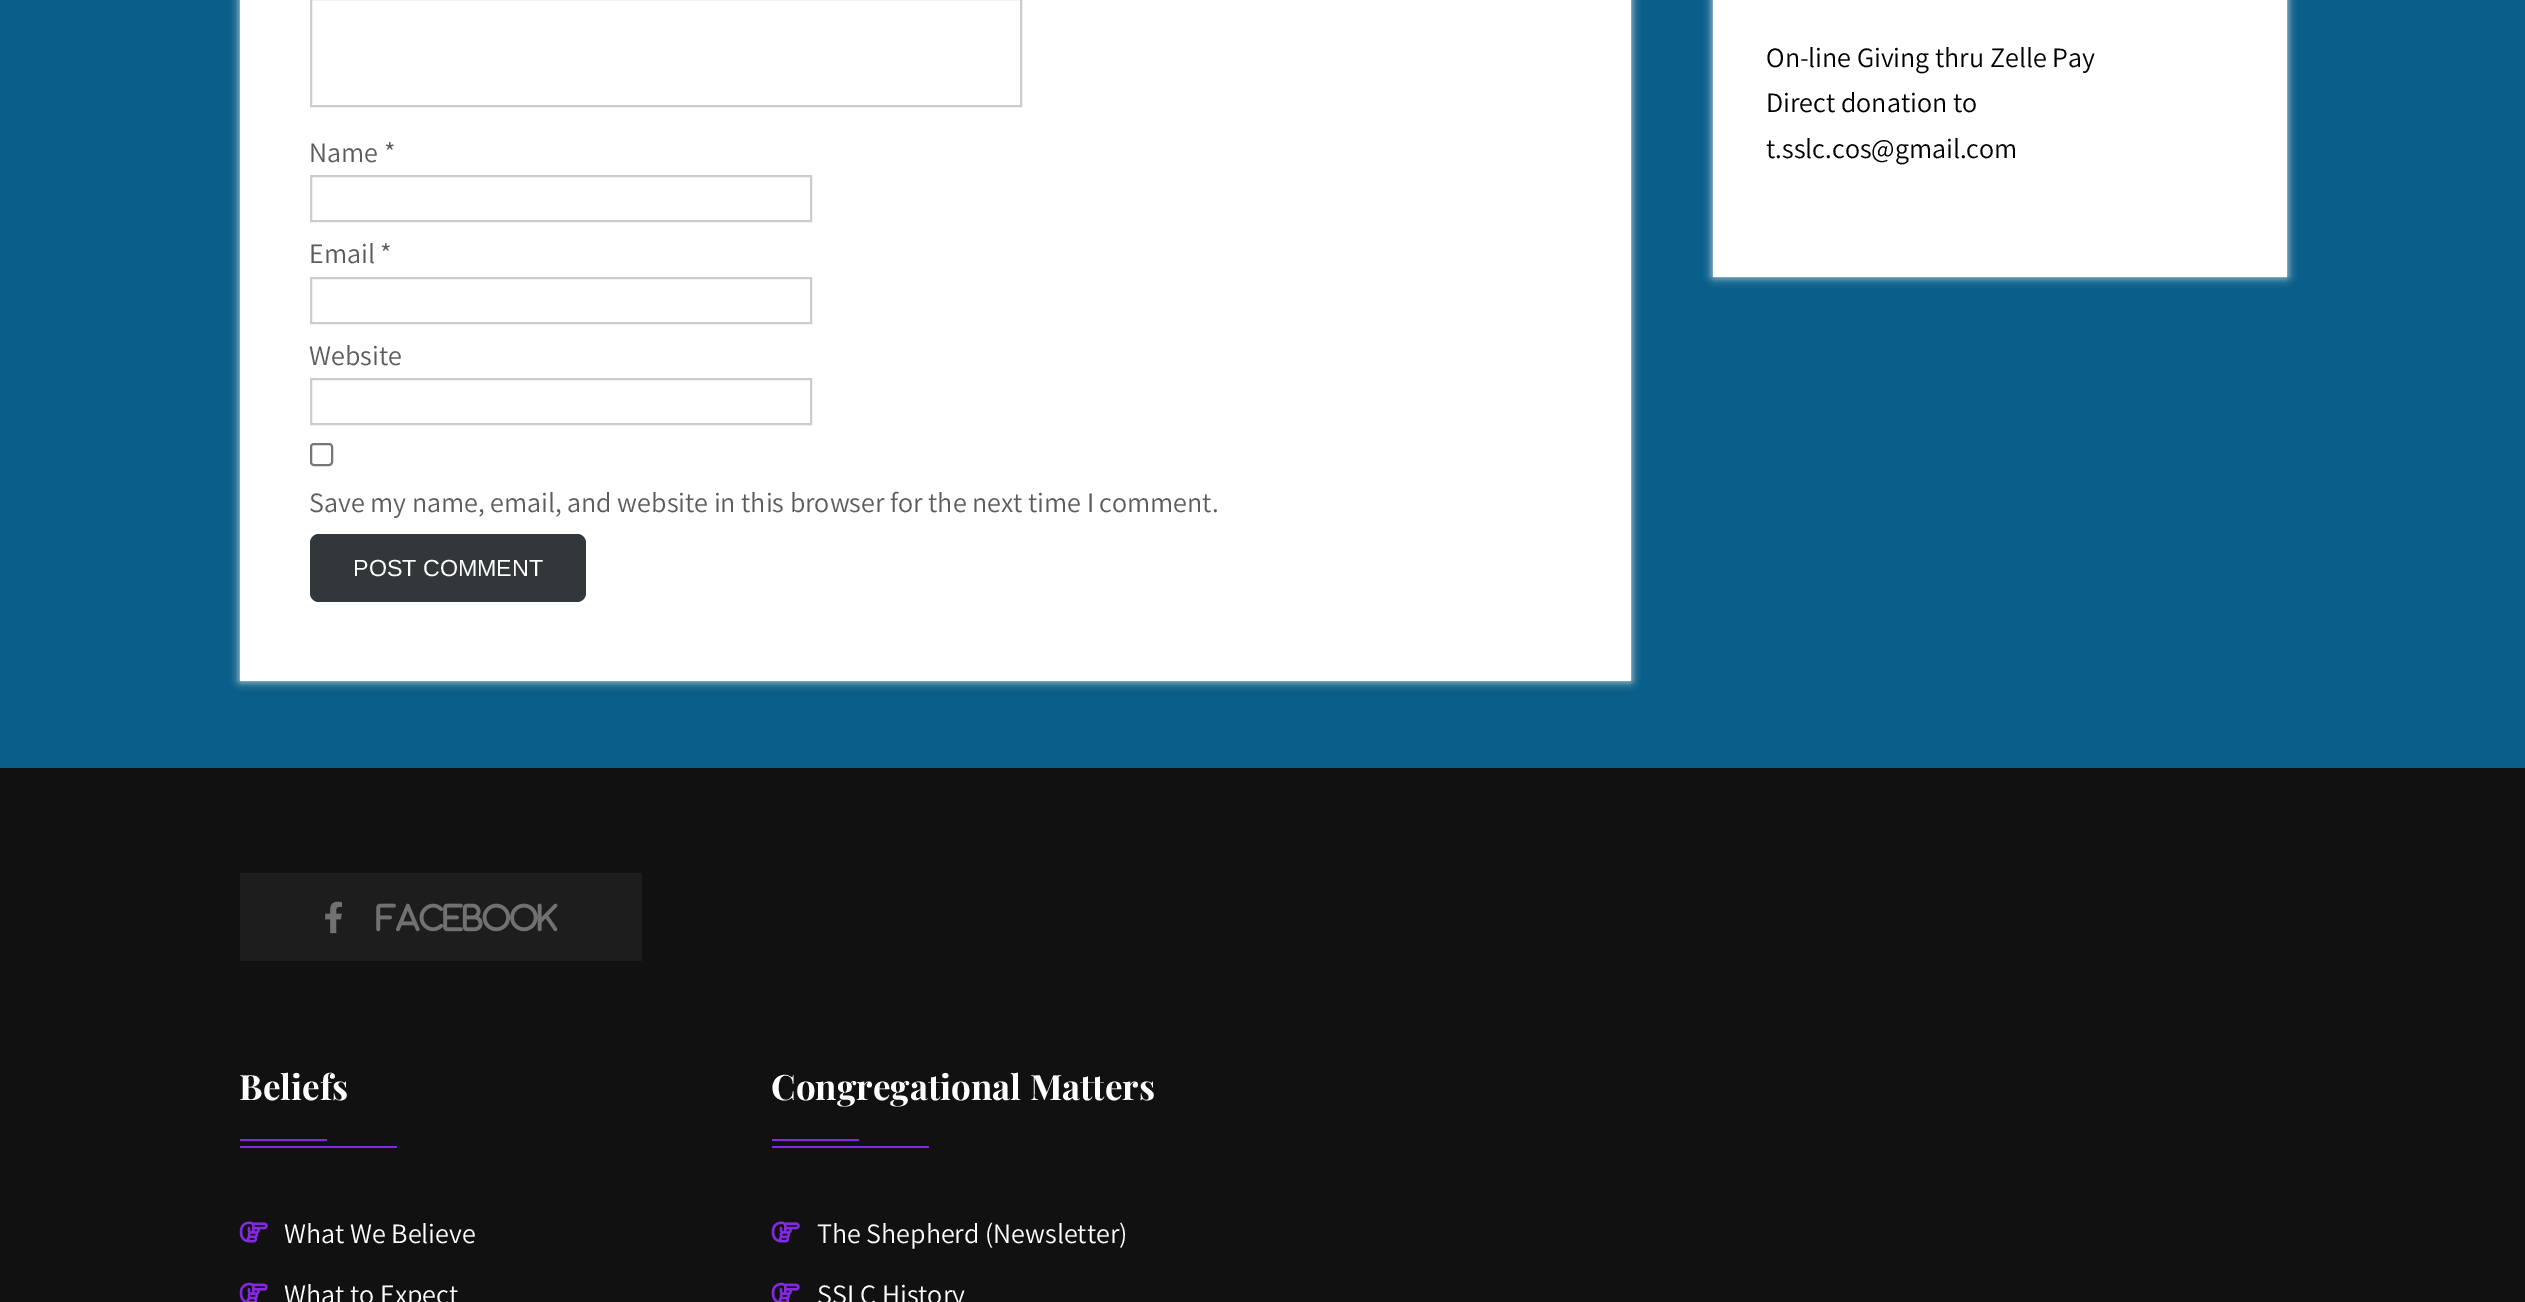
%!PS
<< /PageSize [2525 1302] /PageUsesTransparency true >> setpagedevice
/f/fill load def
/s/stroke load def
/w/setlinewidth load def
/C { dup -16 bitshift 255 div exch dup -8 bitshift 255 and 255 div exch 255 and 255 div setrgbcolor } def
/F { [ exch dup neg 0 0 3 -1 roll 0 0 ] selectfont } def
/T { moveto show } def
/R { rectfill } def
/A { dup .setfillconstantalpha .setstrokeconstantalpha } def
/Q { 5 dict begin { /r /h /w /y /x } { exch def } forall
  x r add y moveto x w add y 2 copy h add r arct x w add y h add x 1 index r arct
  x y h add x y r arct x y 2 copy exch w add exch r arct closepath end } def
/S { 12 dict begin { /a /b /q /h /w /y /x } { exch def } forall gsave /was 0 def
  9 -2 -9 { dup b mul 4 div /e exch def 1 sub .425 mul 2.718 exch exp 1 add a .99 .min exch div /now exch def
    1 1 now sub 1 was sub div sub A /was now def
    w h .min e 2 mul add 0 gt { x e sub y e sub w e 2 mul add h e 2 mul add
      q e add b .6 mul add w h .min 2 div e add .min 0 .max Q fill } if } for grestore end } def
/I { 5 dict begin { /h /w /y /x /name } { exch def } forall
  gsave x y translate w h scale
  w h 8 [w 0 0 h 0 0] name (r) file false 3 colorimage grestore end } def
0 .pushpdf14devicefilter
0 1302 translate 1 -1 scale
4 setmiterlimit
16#095F89 C
0 0 2525 1302 R
16#EEEEEE C
1713 -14 574 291 0 4.5 1 S
16#FFFFFF C
1713 0 574 277 R
/Assistant-Regular 28 F
16#000000 C
(On-line Giving thru Zelle Pay) 1766 67 T
(Direct donation to) 1766 112 T
(t.sslc.cos@gmail.com) 1766 158 T
16#EEEEEE C
240 -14 1391 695 0 4.5 1 S
16#FFFFFF C
240 0 1391 681 R
16#CCCCCC C
2 w
311 -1 710 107 rectstroke
16#5C5C5C C
(Name *) 309 162 T
16#CCCCCC C
311 176 500 45 rectstroke
16#5C5C5C C
(Email *) 309 263 T
16#CCCCCC C
311 278 500 45 rectstroke
16#5C5C5C C
(Website) 309 365 T
16#CCCCCC C
311 379 500 45 rectstroke
16#767676 C
311 444 21 21 3 Q s
16#5C5C5C C
(Save my name, email, and website in this browser for the next time I comment.) 309 512 T
16#32373A C
310 534 276 68 9 Q f
/LiberationSans-Regular 23.25 F
16#FFFFFF C
(POST COMMENT) 353 576 T
16#111111 C
0 768 2525 534 R
16#1D1D1D C
240 873 402 88 R
(1.rgb) 325 901 17 33 I
(2.rgb) 376 903 182 29 I
/PlayfairDisplay-Bold 35 F
16#FFFFFF C
(Beliefs) 239 1100 T
16#8528E2 C
240 1139 87 2 R
240 1146 157 2 R
(3.rgb) 239 1221 29 22 I
/Assistant-Regular 28 F
16#FFFFFF C
(What We Believe) 284 1243 T
(4.rgb) 239 1282 29 20 I
(What to Expect) 284 1304 T
/PlayfairDisplay-Bold 35 F
(Congregational Matters) 771 1100 T
16#8528E2 C
772 1139 87 2 R
772 1146 157 2 R
(3.rgb) 771 1221 29 22 I
/Assistant-Regular 28 F
16#FFFFFF C
(The Shepherd \(Newsletter\)) 817 1243 T
(4.rgb) 771 1282 29 20 I
(SSLC History) 817 1304 T
.poppdf14devicefilter showpage
